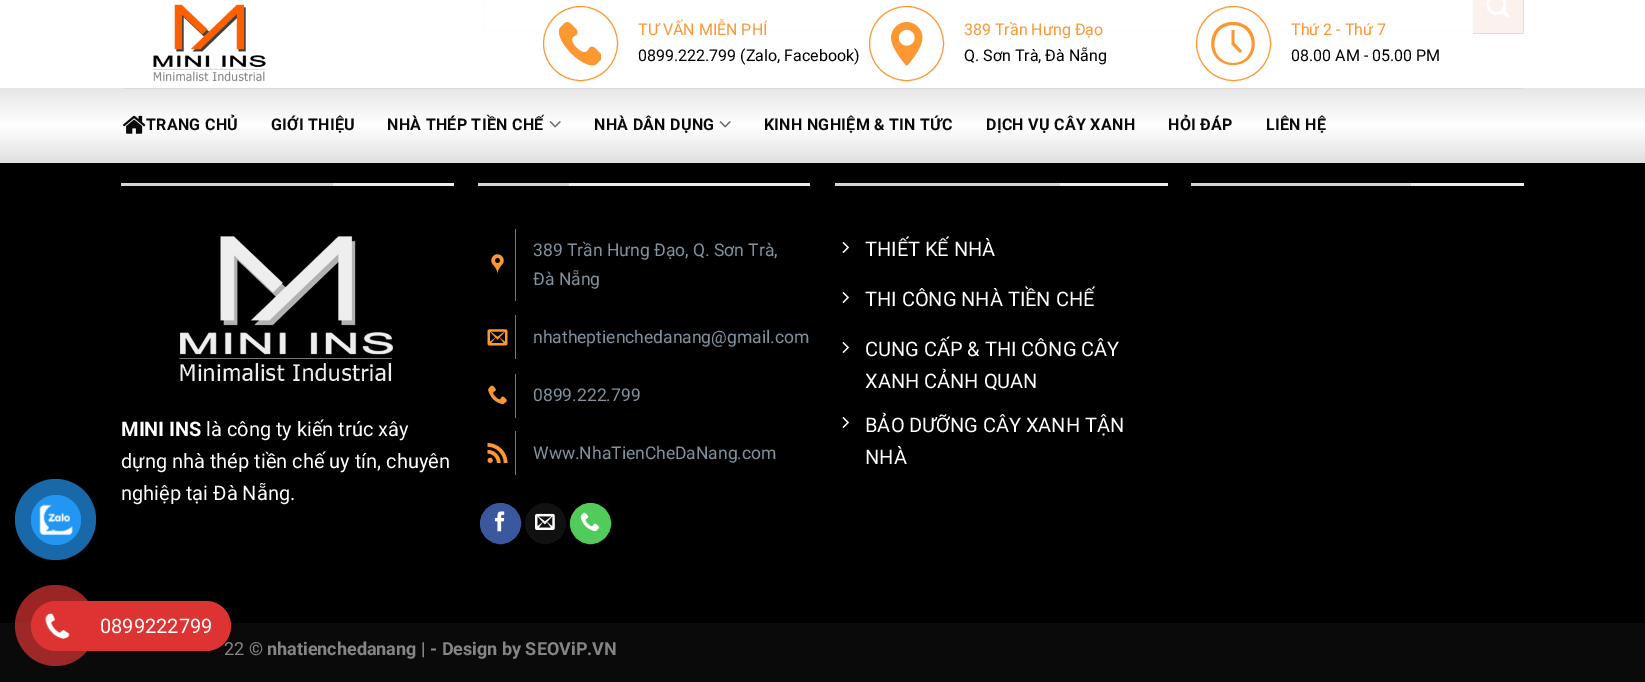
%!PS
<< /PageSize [1645 682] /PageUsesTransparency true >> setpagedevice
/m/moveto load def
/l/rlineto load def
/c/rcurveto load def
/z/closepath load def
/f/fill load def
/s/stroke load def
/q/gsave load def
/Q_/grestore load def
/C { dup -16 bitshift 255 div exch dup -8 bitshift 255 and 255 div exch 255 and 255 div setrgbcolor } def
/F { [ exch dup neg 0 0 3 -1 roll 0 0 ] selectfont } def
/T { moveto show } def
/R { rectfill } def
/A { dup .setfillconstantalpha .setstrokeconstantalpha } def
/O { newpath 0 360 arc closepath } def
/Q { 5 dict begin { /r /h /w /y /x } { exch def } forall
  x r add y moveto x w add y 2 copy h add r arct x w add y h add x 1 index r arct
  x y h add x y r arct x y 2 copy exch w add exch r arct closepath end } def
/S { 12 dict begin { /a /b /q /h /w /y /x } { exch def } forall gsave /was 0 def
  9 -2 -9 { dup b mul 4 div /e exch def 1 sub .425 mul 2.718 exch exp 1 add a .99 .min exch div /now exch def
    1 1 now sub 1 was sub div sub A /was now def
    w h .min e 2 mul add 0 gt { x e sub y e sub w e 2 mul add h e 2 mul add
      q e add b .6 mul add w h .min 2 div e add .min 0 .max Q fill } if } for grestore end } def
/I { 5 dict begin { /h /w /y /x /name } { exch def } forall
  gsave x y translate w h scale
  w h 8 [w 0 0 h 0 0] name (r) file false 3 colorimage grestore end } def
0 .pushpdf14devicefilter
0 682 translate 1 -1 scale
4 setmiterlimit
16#FFFFFF C
0 0 1645 682 R
16#DDDDDD C
483.5 -.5 989 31 rectstroke
16#D26E4B C
1473.5 -.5 m 49 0 l 0 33 l -49 0 l z q f Q_
16#C86947 C
s
(1.rgb) 1486 0 24 18 I
16#000000 C
0 163 1645 460 R
q
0 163 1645 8 rectclip
1 1 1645 163 0 6 .15 S
Q_
0.9 A
16#FFFFFF C
483 0 1040 33 R
1 A
(2.rgb) 153 4 113 78 I
16#FC9732 C
580.5 43.5 37 O s
(3.rgb) 559 22 42 44 I
/Roboto-Regular 16 F
(TƯ VẤN MIỄN PHÍ) 638 35 T
16#000000 C
(0899.222.799 \(Zalo, Facebook\)) 638 61 T
16#FC9732 C
906.5 43.5 37 O s
(4.rgb) 891 22 32 44 I
(389 Trần Hưng Đạo) 964 35 T
16#000000 C
(Q. Sơn Trà, Đà Nẵng) 964 61 T
16#FC9732 C
1233.5 43.5 37 O s
1233 22 m -29 0 -29 43 0 43 c 29 0 29 -43 0 -43 c z 1233 63 m -25 0 -25 -38 0 -38 c 25 0 25 38 0 38 c z f
1234.5 30 m -3 0 l 0 14.5 l 8.5 8.5 l 2 -2 l -7.5 -8 l z f
(Thứ 2 - Thứ 7) 1291 35 T
16#000000 C
(08.00 AM - 05.00 PM) 1291 61 T
q 0 88 m 1645 0 l 0 75 l -1645 0 l z clip newpath
<< /ShadingType 2 /ColorSpace /DeviceRGB /Coords [823 87 823 163] /Extend [true true] /Function << /FunctionType 3 /Domain [0 1] /Functions [<< /FunctionType 2 /Domain [0 1] /C0 [.898 .898 .898] /C1 [1 1 1] /N 1 >> << /FunctionType 2 /Domain [0 1] /C0 [1 1 1] /C1 [.878 .878 .878] /N 1 >>] /Bounds [.5] /Encode [0 1 0 1] >> >> shfill Q_
16#DBDBDB C
123 88 1400 1 R
(5.rgb) 122 115 24 19 I
/Roboto-Bold 16 F
16#0A0A0A C
146 130 m .3 0 (TRANG CHỦ) ashow
271 130 m .3 0 (GIỚI THIỆU) ashow
387 130 m .3 0 (NHÀ THÉP TIỀN CHẾ) ashow
(6.rgb) 549 121 12 7 I
594 130 m .3 0 (NHÀ DÂN DỤNG) ashow
(6.rgb) 719 121 12 7 I
764 130 m .3 0 (KINH NGHIỆM & TIN TỨC) ashow
986 130 m .3 0 (DỊCH VỤ CÂY XANH) ashow
1168 130 m .3 0 (HỎI ĐÁP) ashow
1266 130 m .3 0 (LIÊN HỆ) ashow
16#ECECEC C
1411 183 113 3 R
16#D4D4D4 C
1191 183 220 3 R
16#ECECEC C
333 183 121 3 R
16#D4D4D4 C
121 183 212 3 R
(7.rgb) 179 236 214 145 I
/Roboto-Bold 20 F
16#FFFFFF C
(MINI INS) 121 436 T
/Roboto-Regular 20 F
(là công ty kiến trúc xây) 206 436 T
(dựng nhà thép tiền chế uy tín, chuyên) 121 468 T
(nghiệp tại Đà Nẵng.) 121 500 T
16#ECECEC C
569 183 241 3 R
16#D4D4D4 C
478 183 91 3 R
16#777777 C
515 229 1 72 R
/Roboto-Regular 17.5 F
16#81929E C
(389 Trần Hưng Đạo, Q. Sơn Trà,) 533 256 T
(8.rgb) 491 254 13 20 I
(Đà Nẵng) 533 285 T
(9.rgb) 487 329 21 17 I
16#777777 C
515 315 1 44 R
16#81929E C
(nhatheptienchedanang@gmail.com) 533 343 T
(10.rgb) 488 385 19 20 I
16#777777 C
515 374 1 44 R
16#81929E C
(0899.222.799) 533 401 T
(11.rgb) 487 443 21 20 I
16#777777 C
515 431 1 44 R
16#81929E C
(Www.NhaTienCheDaNang.com) 533 459 T
16#3A589D C
500.5 523.5 20 O q f Q_
s
(12.rgb) 494 511 11 21 I
16#111111 C
545.5 523.5 20 O q f Q_
s
(13.rgb) 535 513 20 17 I
16#51CB5A C
590.5 523.5 20 O q f Q_
s
(14.rgb) 580 512 20 20 I
16#ECECEC C
1060 183 108 3 R
16#D4D4D4 C
835 183 225 3 R
(15.rgb) 842 242 7 11 I
/Roboto-Regular 20 F
16#FFFFFF C
(THIẾT KẾ NHÀ) 865 256 T
(15.rgb) 842 292 7 11 I
(THI CÔNG NHÀ TIỀN CHẾ) 865 306 T
(15.rgb) 842 342 7 11 I
(CUNG CẤP & THI CÔNG CÂY) 865 356 T
(XANH CẢNH QUAN) 865 388 T
(15.rgb) 842 417 7 11 I
(BẢO DƯỠNG CÂY XANH TẬN) 865 432 T
(NHÀ) 865 464 T
16#0A0A0A C
0 623 1645 59 R
/Roboto-Regular 18 F
16#858585 C
(22 ©) 224 655 T
/Roboto-Bold 18 F
(nhatienchedanang | - Design by SEOViP.VN) 267 655 T
16#1769AA C
55.5 519.5 40.5 O f
16#2196F3 C
56 520 25 O f
(16.rgb) 39 504 34 32 I
16#DD3333 C
38 601 193 50 25 Q f
0.7 A
55.5 625.5 40.5 O f
1 A
56 626 25 O f
(17.rgb) 44 613 26 26 I
/Roboto-Regular 20 F
16#FFFFFF C
(0899222799) 100 633 T
.poppdf14devicefilter showpage
